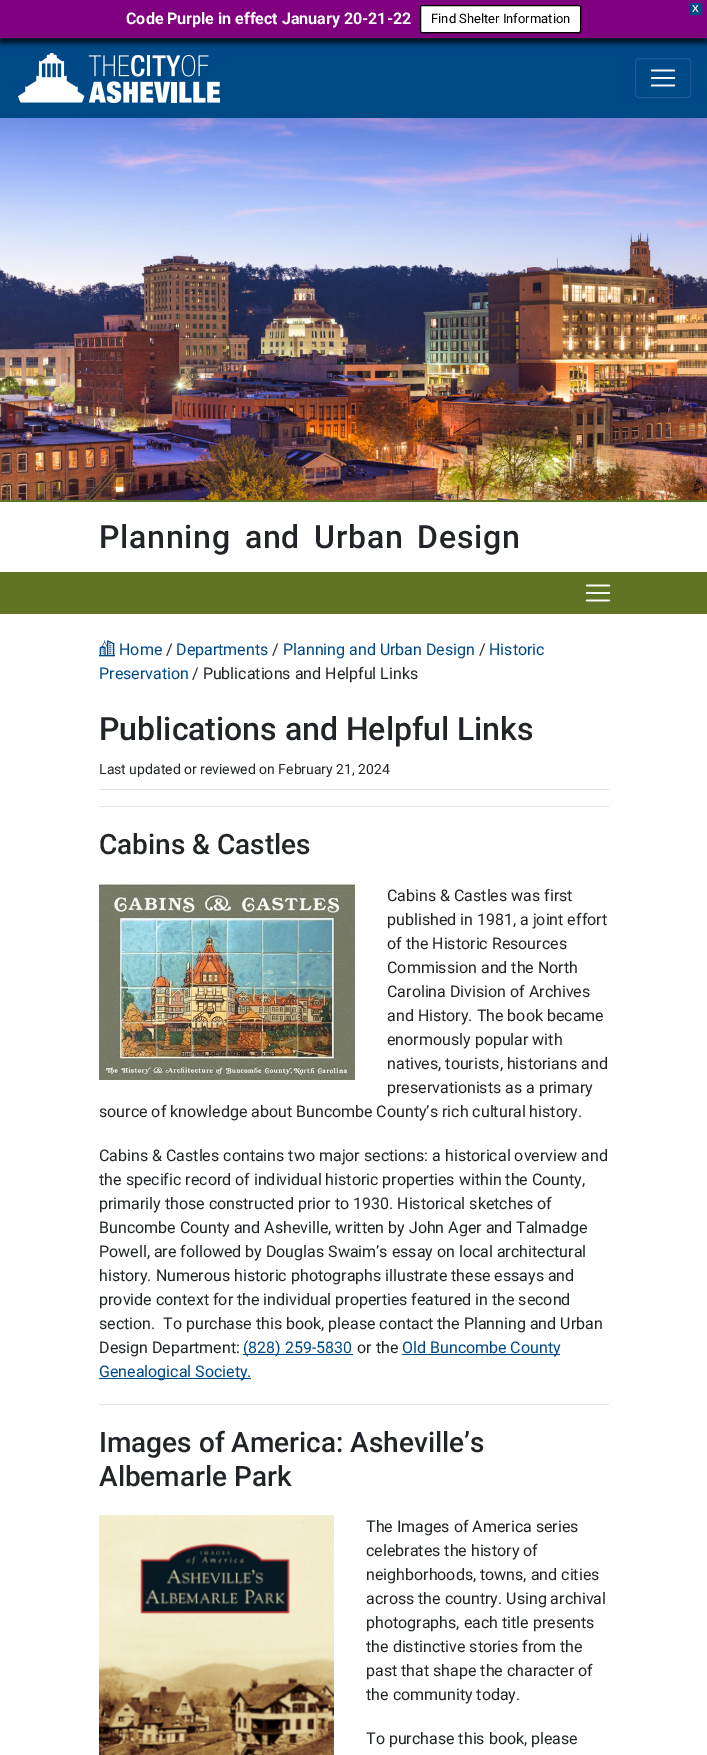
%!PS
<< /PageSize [707 1755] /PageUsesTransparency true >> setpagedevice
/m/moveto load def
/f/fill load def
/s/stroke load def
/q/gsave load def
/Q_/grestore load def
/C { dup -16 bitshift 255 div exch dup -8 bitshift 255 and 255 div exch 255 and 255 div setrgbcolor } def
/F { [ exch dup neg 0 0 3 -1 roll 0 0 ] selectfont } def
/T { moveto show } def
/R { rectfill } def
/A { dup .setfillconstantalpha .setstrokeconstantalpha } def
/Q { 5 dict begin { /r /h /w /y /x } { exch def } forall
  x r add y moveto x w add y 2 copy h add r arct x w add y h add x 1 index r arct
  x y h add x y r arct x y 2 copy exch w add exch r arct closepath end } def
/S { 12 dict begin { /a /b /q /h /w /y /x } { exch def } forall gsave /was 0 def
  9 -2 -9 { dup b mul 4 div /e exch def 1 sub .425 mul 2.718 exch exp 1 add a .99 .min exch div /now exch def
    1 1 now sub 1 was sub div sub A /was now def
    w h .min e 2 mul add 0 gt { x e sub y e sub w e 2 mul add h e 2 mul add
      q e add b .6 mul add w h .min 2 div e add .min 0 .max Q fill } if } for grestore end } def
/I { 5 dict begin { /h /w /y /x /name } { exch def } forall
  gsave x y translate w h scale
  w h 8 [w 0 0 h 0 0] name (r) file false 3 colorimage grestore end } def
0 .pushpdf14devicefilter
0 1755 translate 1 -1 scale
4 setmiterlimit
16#FFFFFF C
0 0 707 1755 R
16#004987 C
0 38 707 80 R
16#000000 C
0 5 707 38 0 2.5 .75 S
16#800080 C
0 0 707 38 R
16#004987 C
689.5 3.5 12 11 1.5 Q q f Q_
s
/LiberationSans-Bold 10 F
16#EBEBEB C
(X) 692 12 T
/Roboto-Bold 16 F
16#FFFFFF C
(Code Purple in effect January 20-21-22) 126 24 T
16#000000 C
420 6 161 28 2 1 .2 S
16#FFFFFF C
421 6 159 26 R
16#000000 C
420.5 5.5 160 27 1.5 Q s
/Roboto-Regular 13 F
(Find Shelter Information) 431 23 T
(1.rgb) 18 53 202 50 I
16#1A5B93 C
635.5 58.5 55 39 3.5 Q s
(2.rgb) 650 69 26 18 I
16#607425 C
0 500 707 2 R
(3.rgb) 0 118 707 382 I
/Roboto-Medium 32 F
16#212529 C
99 548 m 5 0 32 .8 0 (Planning and Urban Design) awidthshow
16#607425 C
0 572 707 42 R
(4.rgb) 585 584 26 18 I
(5.rgb) 99 640 16 17 I
/Roboto-Regular 16 F
16#004987 C
(Home) 119 655 T
16#212529 C
(/) 166 655 T
16#004987 C
(Departments) 176 655 T
16#212529 C
(/) 272 655 T
16#004987 C
(Planning and Urban Design) 283 655 T
16#212529 C
(/) 479 655 T
16#004987 C
(Historic) 489 655 T
(Preservation) 99 679 T
16#212529 C
(/ Publications and Helpful Links) 192 679 T
16#DEE2E6 C
99 789 510 1 R
/Roboto-Medium 32 F
16#212529 C
(Publications and Helpful Links) 99 740 T
/Roboto-Regular 14 F
(Last updated or reviewed on February 21, 2024) 99 774 T
16#E6E6E6 C
99 806 510 1 R
/Roboto-Medium 28 F
16#212529 C
(Cabins & Castles) 99 854 T
(6.rgb) 99 884 256 196 I
/Roboto-Regular 16 F
(Cabins & Castles was first) 387 901 T
(published in 1981, a joint effort) 387 925 T
(of the Historic Resources) 387 949 T
(Commission and the North) 387 973 T
(Carolina Division of Archives) 387 997 T
(and History. The book became) 387 1021 T
(enormously popular with) 387 1045 T
(natives, tourists, historians and) 387 1069 T
(preservationists as a primary) 387 1093 T
(source of knowledge about Buncombe County’s rich cultural history.) 99 1117 T
(Cabins & Castles contains two major sections: a historical overview and) 99 1161 T
(the specific record of individual historic properties within the County,) 99 1185 T
(primarily those constructed prior to 1930. Historical sketches of) 99 1209 T
(Buncombe County and Asheville, written by John Ager and Talmadge) 99 1233 T
(Powell, are followed by Douglas Swaim’s essay on local architectural) 99 1257 T
(history. Numerous historic photographs illustrate these essays and) 99 1281 T
(provide context for the individual properties featured in the second) 99 1305 T
(section.  To purchase this book, please contact the Planning and Urban) 99 1329 T
(Design Department:) 99 1353 T
16#004987 C
243 1354 110 1 R
(\(828\) 259-5830) 243 1353 T
16#212529 C
(or the) 357 1353 T
16#004987 C
402 1354 158 1 R
(Old Buncombe County) 402 1353 T
99 1378 152 1 R
(Genealogical Society.) 99 1377 T
16#E6E6E6 C
99 1404 510 1 R
/Roboto-Medium 28 F
16#212529 C
(Images of America: Asheville’s) 99 1452 T
(Albemarle Park) 99 1486 T
(7.rgb) 99 1515 235 240 I
/Roboto-Regular 16 F
(The Images of America series) 366 1532 T
(celebrates the history of) 366 1556 T
(neighborhoods, towns, and cities) 366 1580 T
(across the country. Using archival) 366 1604 T
(photographs, each title presents) 366 1628 T
(the distinctive stories from the) 366 1652 T
(past that shape the character of) 366 1676 T
(the community today.) 366 1700 T
(To purchase this book, please) 366 1744 T
.poppdf14devicefilter showpage
